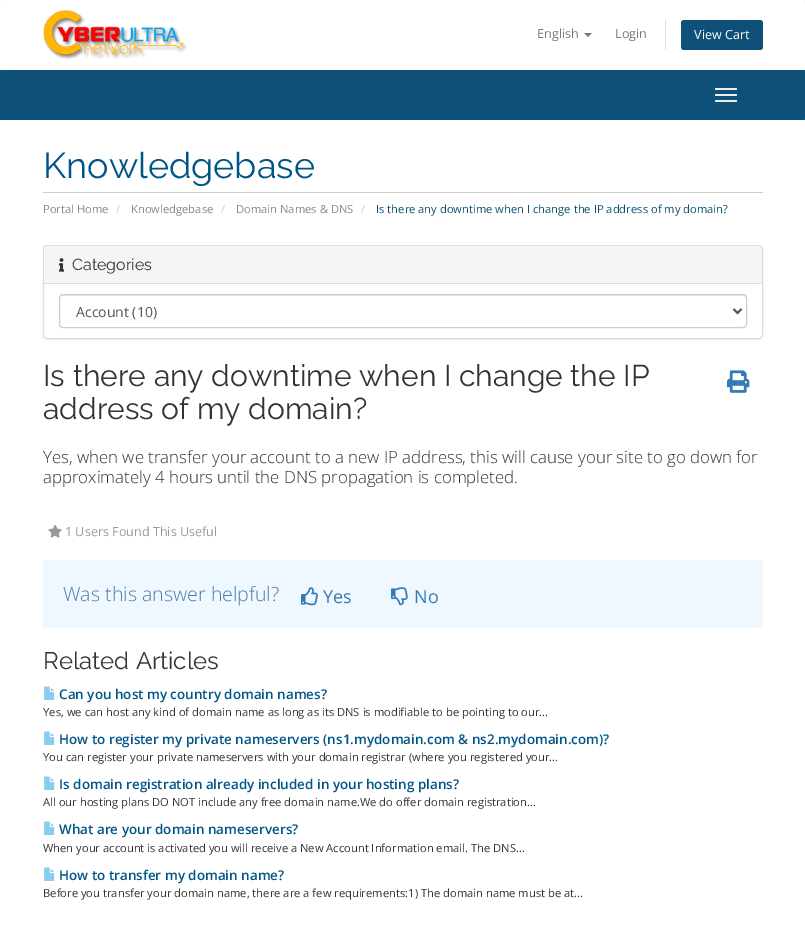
%!PS
<< /PageSize [805 944] /PageUsesTransparency true >> setpagedevice
/m/moveto load def
/l/rlineto load def
/c/rcurveto load def
/z/closepath load def
/f/fill load def
/s/stroke load def
/q/gsave load def
/Q_/grestore load def
/w/setlinewidth load def
/C { dup -16 bitshift 255 div exch dup -8 bitshift 255 and 255 div exch 255 and 255 div setrgbcolor } def
/F { [ exch dup neg 0 0 3 -1 roll 0 0 ] selectfont } def
/T { moveto show } def
/R { rectfill } def
/A { dup .setfillconstantalpha .setstrokeconstantalpha } def
/Q { 5 dict begin { /r /h /w /y /x } { exch def } forall
  x r add y moveto x w add y 2 copy h add r arct x w add y h add x 1 index r arct
  x y h add x y r arct x y 2 copy exch w add exch r arct closepath end } def
/S { 12 dict begin { /a /b /q /h /w /y /x } { exch def } forall gsave /was 0 def
  9 -2 -9 { dup b mul 4 div /e exch def 1 sub .425 mul 2.718 exch exp 1 add a .99 .min exch div /now exch def
    1 1 now sub 1 was sub div sub A /was now def
    w h .min e 2 mul add 0 gt { x e sub y e sub w e 2 mul add h e 2 mul add
      q e add b .6 mul add w h .min 2 div e add .min 0 .max Q fill } if } for grestore end } def
/I { 5 dict begin { /h /w /y /x /name } { exch def } forall
  gsave x y translate w h scale
  w h 8 [w 0 0 h 0 0] name (r) file false 3 colorimage grestore end } def
0 .pushpdf14devicefilter
0 944 translate 1 -1 scale
4 setmiterlimit
16#F8F8F8 C
0 0 805 944 R
16#FFFFFF C
5 0 m 795 0 l 3 0 5 2 5 5 c 0 65 l -805 0 l 0 -65 l 0 -3 2 -5 5 -5 c z f
(1.rgb) 43 10 144 50 I
/OpenSans-Regular 12.6 F
16#777777 C
(English) 537 38 T
584 33 m 8 0 l -4 4 l z f
(Login) 615 38 T
16#DDDDDD C
665 20 1 30 R
16#0E5077 C
681 20 82 30 3 Q f
16#FFFFFF C
(View Cart) 694 39 T
16#006687 C
0 70 805 50 R
16#0E5077 C
0 70 805 50 4 Q f
16#EEEEEE C
715 88 22 2 1 Q f
715 94 22 2 1 Q f
715 100 22 2 1 Q f
16#FFFFFF C
0 120 805 824 R
16#CCCCCC C
43 192 720 1 R
/Raleway-Regular 36 F
16#005588 C
(Knowledgebase) 43 178 T
/OpenSans-Regular 11.2 F
16#888888 C
(Portal Home) 43 213 T
16#CCCCCC C
(/) 116 213 T
16#888888 C
(Knowledgebase) 131 213 T
16#CCCCCC C
(/) 221 213 T
16#888888 C
(Domain Names & DNS) 236 213 T
16#CCCCCC C
(/) 361 213 T
16#0E5077 C
(Is there any downtime when I change the IP address of my domain?) 376 213 T
16#000000 C
43 246 720 94 4 .5 .05 S
16#FFFFFF C
43.5 245.5 719 93 3.5 Q q f Q_
16#DDDDDD C
s
16#F5F5F5 C
47 246 m 712 0 l 1.5 0 3 1.5 3 3 c 0 35 l -718 0 l 0 -35 l 0 -1.5 1.5 -3 3 -3 c z f
16#DDDDDD C
44 283 718 1 R
(2.rgb) 59 258 6 14 I
/Raleway-Regular 16 F
16#333333 C
(Categories) 72 270 T
16#ECECEC C
63 296 m 680 0 l 2 0 3 1 3 3 c 0 -1 l 0 -2 -1 -3 -3 -3 c -680 0 l -2 0 -3 1 -3 3 c 0 1 l 0 -2 1 -3 3 -3 c z f
16#CCCCCC C
59.5 294.5 687 33 3.5 Q s
16#555555 C
2 w
733.5 309 m 4 4 l 4 -4 l s
/OpenSans-Regular 14 F
(Account \(10\)) 76 317 T
/Raleway-Regular 30 F
16#333333 C
(Is there any downtime when I change the IP) 43 386 T
(address of my domain?) 43 419 T
(3.rgb) 727 370 23 23 I
/OpenSans-Light 16.8 F
(Yes, when we transfer your account to a new IP address, this will cause your site to go down for) 43 463 T
(approximately 4 hours until the DNS propagation is completed.) 43 483 T
(4.rgb) 48 525 14 13 I
/OpenSans-Regular 12.6 F
16#999999 C
(1 Users Found This Useful) 65 536 T
16#EFF7FF C
43 560 720 68 R
/OpenSans-Light 19.6 F
16#4D7CAB C
(Was this answer helpful?) 63 601 T
(5.rgb) 301 587 17 19 I
/OpenSans-Regular 18 F
16#337AB7 C
(Yes) 323 603 T
(6.rgb) 391 587 17 19 I
(No) 414 603 T
/Raleway-Regular 24 F
16#333333 C
(Related Articles) 43 669 T
(7.rgb) 44 686 11 14 I
/OpenSans-SemiBold 13.45 F
16#005588 C
(Can you host my country domain names?) 59 699 T
/OpenSans-Regular 11.2 F
16#333333 C
(Yes, we can host any kind of domain name as long as its DNS is modifiable to be pointing to our...) 43 716 T
(7.rgb) 44 731 11 14 I
/OpenSans-SemiBold 13.45 F
16#005588 C
(How to register my private nameservers \(ns1.mydomain.com & ns2.mydomain.com\)?) 59 744 T
/OpenSans-Regular 11.2 F
16#333333 C
(You can register your private nameservers with your domain registrar \(where you registered your...) 43 761 T
(7.rgb) 44 776 11 14 I
/OpenSans-SemiBold 13.45 F
16#005588 C
(Is domain registration already included in your hosting plans?) 59 789 T
/OpenSans-Regular 11.2 F
16#333333 C
(All our hosting plans DO NOT include any free domain name.We do offer domain registration...) 43 806 T
(7.rgb) 44 821 11 14 I
/OpenSans-SemiBold 13.45 F
16#005588 C
(What are your domain nameservers?) 59 834 T
/OpenSans-Regular 11.2 F
16#333333 C
(When your account is activated you will receive a New Account Information email. The DNS...) 43 852 T
(7.rgb) 44 867 11 14 I
/OpenSans-SemiBold 13.45 F
16#005588 C
(How to transfer my domain name?) 59 880 T
/OpenSans-Regular 11.2 F
16#333333 C
(Before you transfer your domain name, there are a few requirements:1\) The domain name must be at...) 43 897 T
.poppdf14devicefilter showpage
